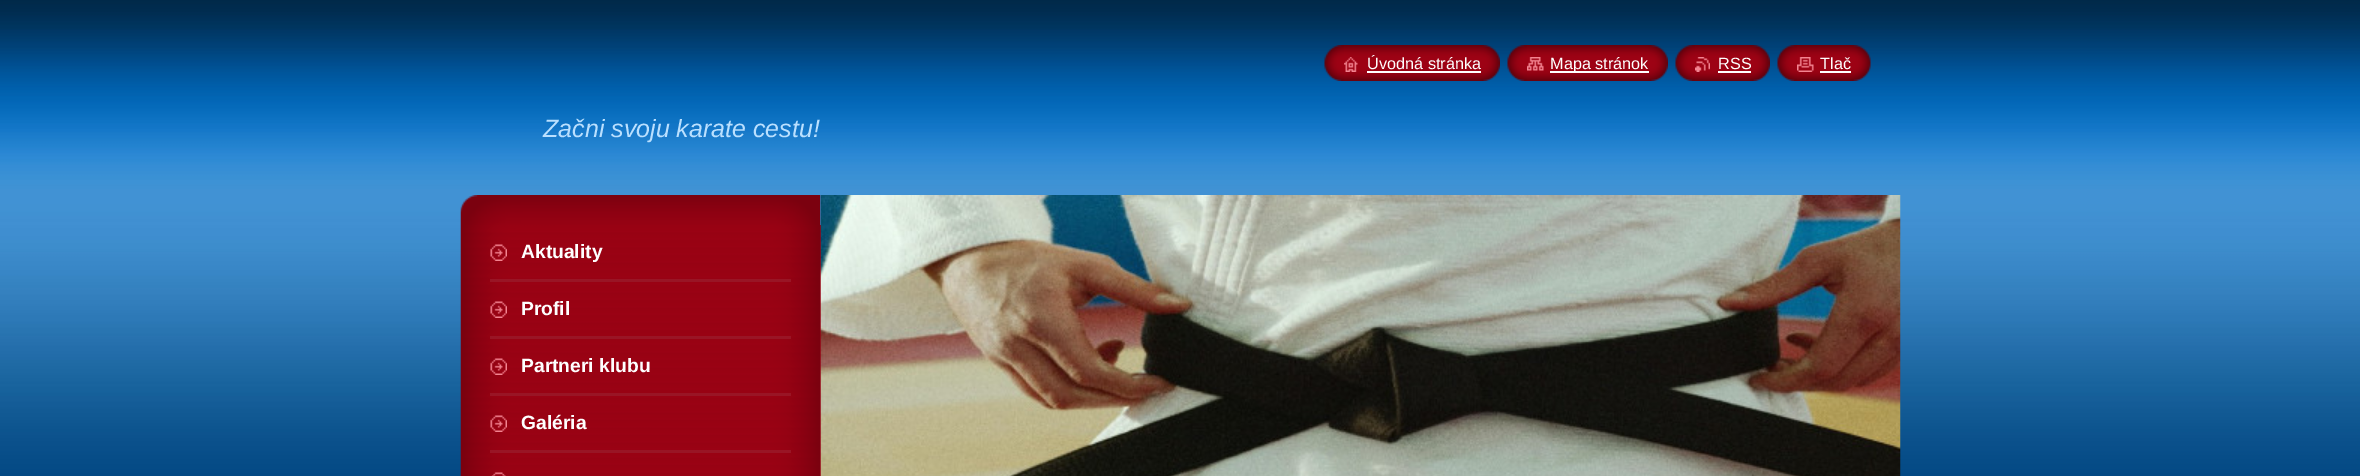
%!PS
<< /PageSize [2360 476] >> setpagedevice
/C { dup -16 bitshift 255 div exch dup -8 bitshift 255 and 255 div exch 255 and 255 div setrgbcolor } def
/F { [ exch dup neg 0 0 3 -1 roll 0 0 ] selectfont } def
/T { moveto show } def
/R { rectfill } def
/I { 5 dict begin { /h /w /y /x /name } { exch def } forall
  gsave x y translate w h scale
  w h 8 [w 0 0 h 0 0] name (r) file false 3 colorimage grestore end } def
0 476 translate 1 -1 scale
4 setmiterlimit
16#FFFFFF C
0 0 2360 476 R
(1.rgb) 0 0 2360 476 I
(2.rgb) 1324 45 20 36 I
(3.rgb) 1344 45 156 36 I
(4.rgb) 1344 57 14 15 I
/LiberationSans-Regular 16.25 F
(Úvodná stránka) 1367 69 T
1367 71 114 2 R
(2.rgb) 1507 45 20 36 I
(5.rgb) 1527 45 141 36 I
(6.rgb) 1527 57 17 14 I
1550 71 99 2 R
(Mapa stránok) 1550 69 T
(7.rgb) 1675 45 20 36 I
(8.rgb) 1695 45 75 36 I
(9.rgb) 1695 57 15 15 I
(RSS) 1718 69 T
1718 71 33 2 R
(7.rgb) 1777 45 20 36 I
(10.rgb) 1797 45 74 36 I
(11.rgb) 1797 57 17 15 I
(Tlač) 1820 69 T
1820 71 31 2 R
/LiberationSans-Italic 25 F
16#BAE0FF C
(Začni svoju karate cestu!) 543 137 T
(12.rgb) 460 195 361 30 I
16#9D0214 C
820 225 1 251 R
(13.rgb) 460 225 361 251 I
16#991525 C
490 279 301 3 R
(14.rgb) 490 244 17 17 I
/LiberationSans-Bold 19.25 F
16#FFFFFF C
(Aktuality) 521 258 T
16#991525 C
490 336 301 3 R
(15.rgb) 490 301 17 17 I
16#FFFFFF C
(Profil) 521 315 T
16#991525 C
490 393 301 3 R
(16.rgb) 490 358 17 17 I
16#FFFFFF C
(Partneri klubu) 521 372 T
16#991525 C
490 450 301 3 R
(17.rgb) 490 415 17 17 I
16#FFFFFF C
(Galéria) 521 429 T
(18.rgb) 491 472 15 4 I
(19.rgb) 820 195 1081 281 I
showpage
